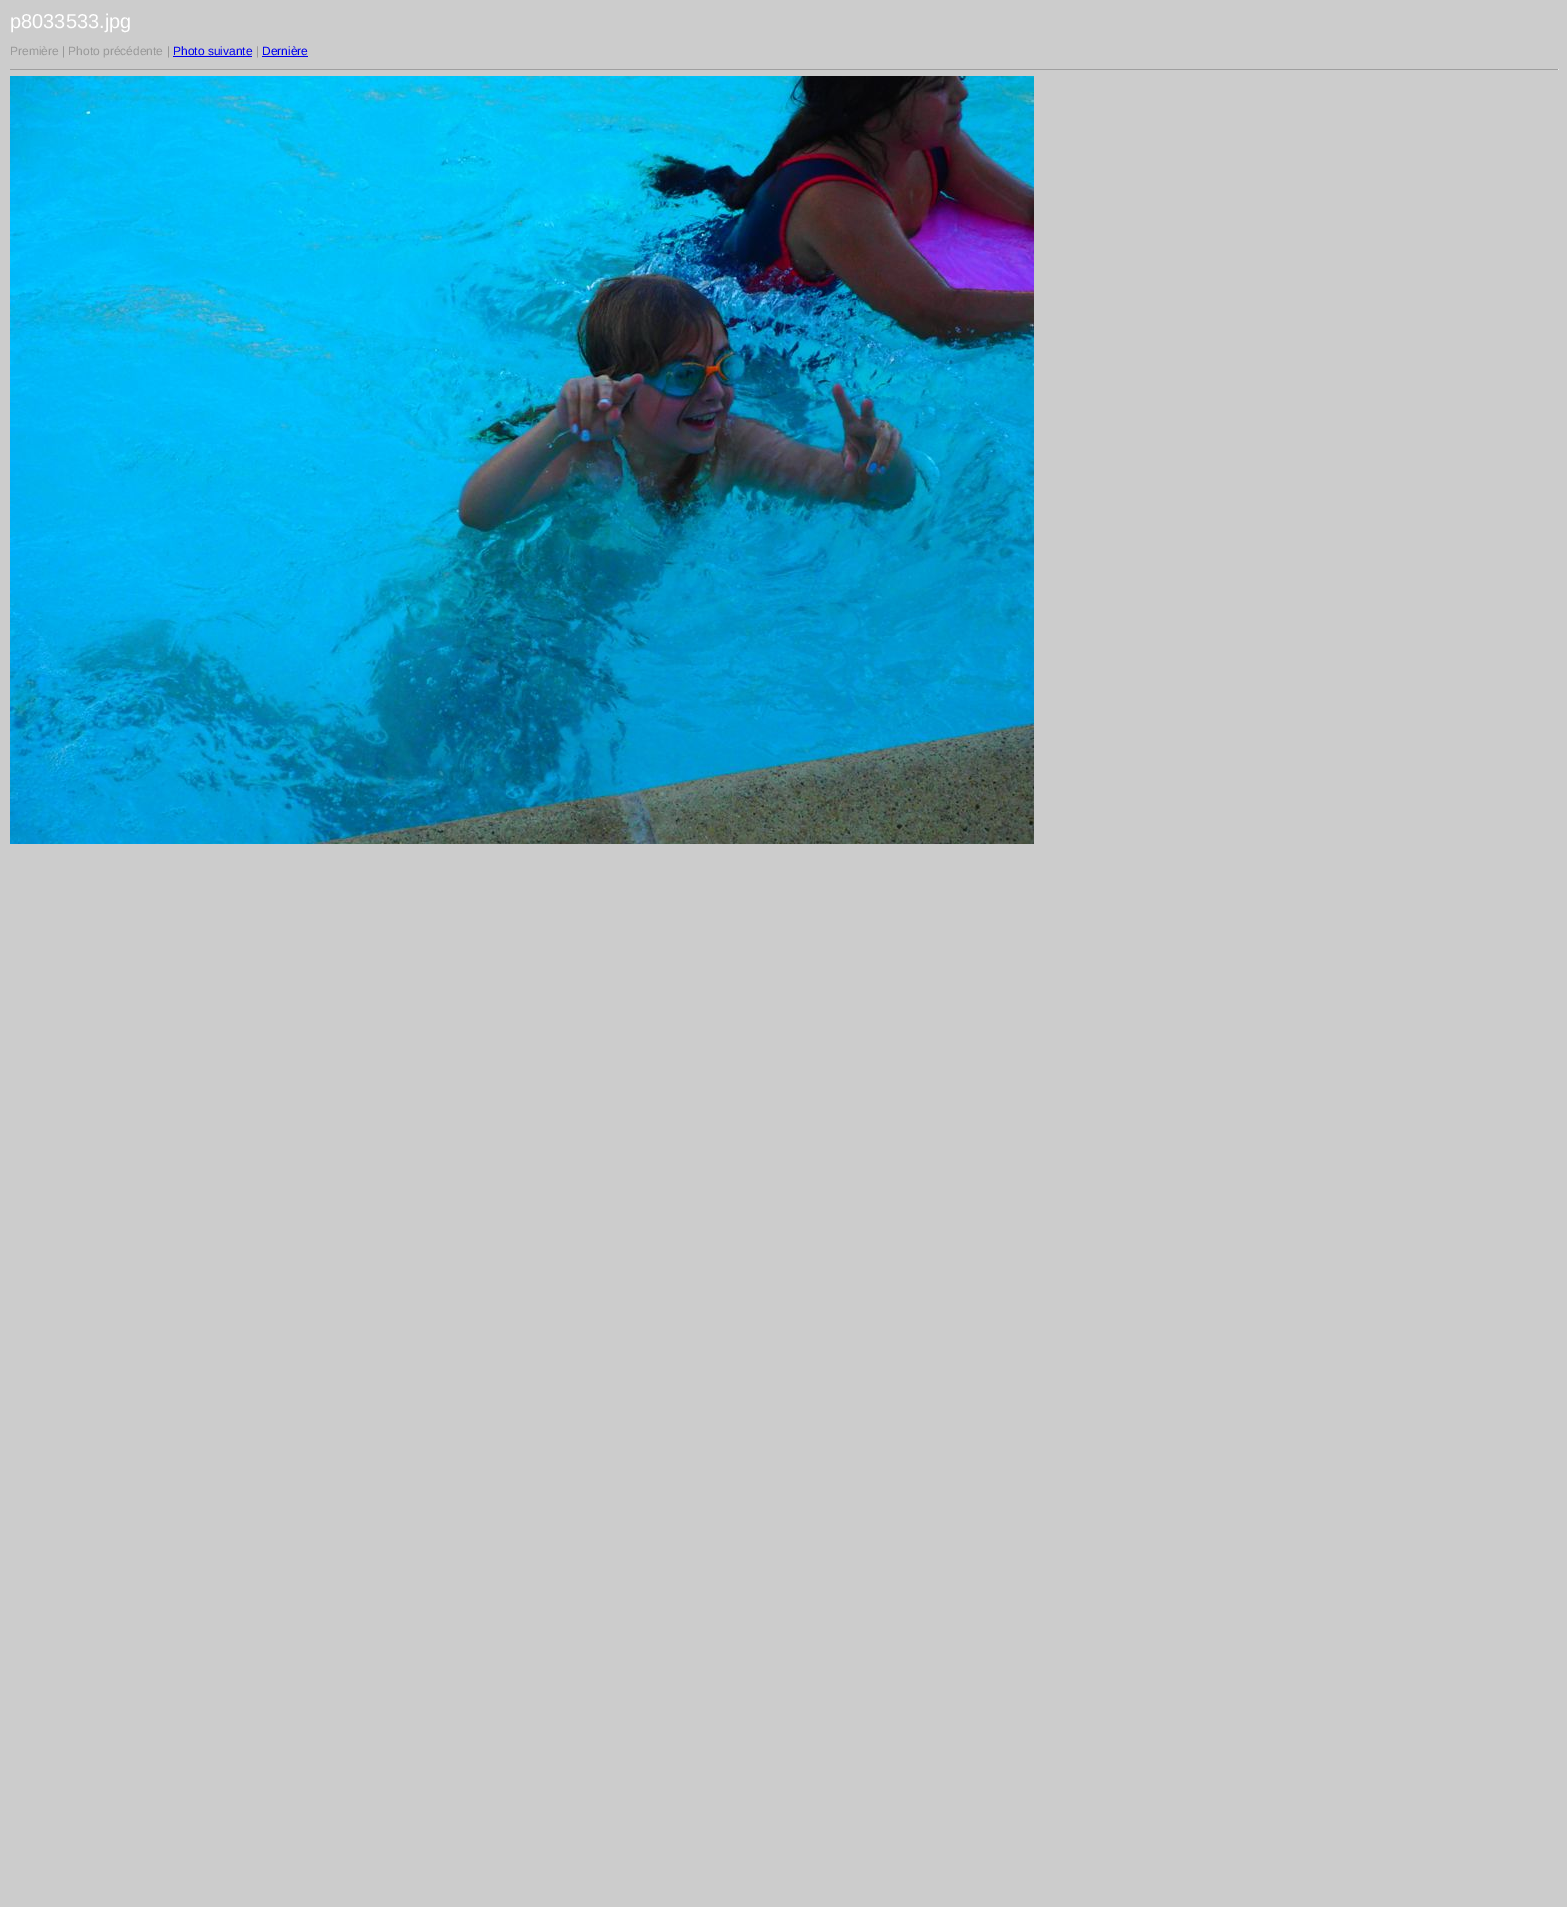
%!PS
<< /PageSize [1567 1907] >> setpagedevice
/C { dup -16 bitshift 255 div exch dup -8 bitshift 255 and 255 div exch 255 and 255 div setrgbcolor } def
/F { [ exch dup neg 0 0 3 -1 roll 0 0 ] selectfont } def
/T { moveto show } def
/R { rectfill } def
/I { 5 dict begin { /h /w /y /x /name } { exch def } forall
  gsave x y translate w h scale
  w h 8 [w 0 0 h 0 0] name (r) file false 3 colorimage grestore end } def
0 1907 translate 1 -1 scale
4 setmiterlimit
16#CCCCCC C
0 0 1567 1907 R
/LiberationSans-Regular 20 F
16#FFFFFF C
(p8033533.jpg) 10 28 T
/LiberationSans-Regular 12 F
16#999999 C
(Première | Photo précédente |) 10 55 T
16#0000EE C
(Photo suivante) 173 55 T
173 56 79 1 R
16#999999 C
(|) 256 55 T
16#0000EE C
(Dernière) 262 55 T
262 56 46 1 R
16#9F9F9F C
10 69 1549 1 R
16#EEEEEE C
1558 69 1 1 R
(1.rgb) 10 76 1024 768 I
showpage
